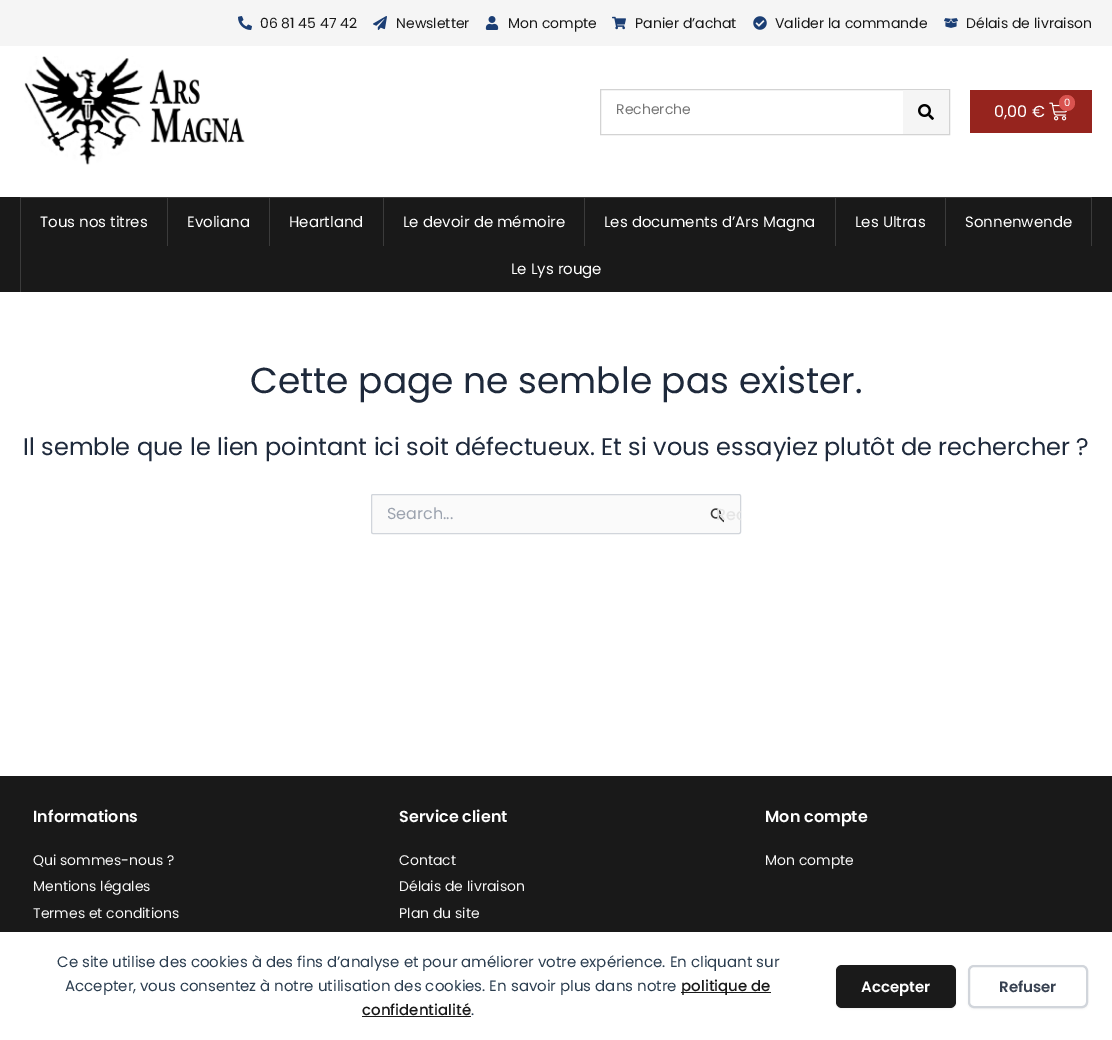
%!PS
<< /PageSize [1112 1040] /PageUsesTransparency true >> setpagedevice
/f/fill load def
/s/stroke load def
/q/gsave load def
/Q_/grestore load def
/w/setlinewidth load def
/C { dup -16 bitshift 255 div exch dup -8 bitshift 255 and 255 div exch 255 and 255 div setrgbcolor } def
/F { [ exch dup neg 0 0 3 -1 roll 0 0 ] selectfont } def
/T { moveto show } def
/R { rectfill } def
/A { dup .setfillconstantalpha .setstrokeconstantalpha } def
/O { newpath 0 360 arc closepath } def
/Q { 5 dict begin { /r /h /w /y /x } { exch def } forall
  x r add y moveto x w add y 2 copy h add r arct x w add y h add x 1 index r arct
  x y h add x y r arct x y 2 copy exch w add exch r arct closepath end } def
/S { 12 dict begin { /a /b /q /h /w /y /x } { exch def } forall gsave /was 0 def
  9 -2 -9 { dup b mul 4 div /e exch def 1 sub .425 mul 2.718 exch exp 1 add a .99 .min exch div /now exch def
    1 1 now sub 1 was sub div sub A /was now def
    w h .min e 2 mul add 0 gt { x e sub y e sub w e 2 mul add h e 2 mul add
      q e add b .6 mul add w h .min 2 div e add .min 0 .max Q fill } if } for grestore end } def
/I { 5 dict begin { /h /w /y /x /name } { exch def } forall
  gsave x y translate w h scale
  w h 8 [w 0 0 h 0 0] name (r) file false 3 colorimage grestore end } def
0 .pushpdf14devicefilter
0 1040 translate 1 -1 scale
4 setmiterlimit
16#FFFFFF C
0 0 1112 1040 R
16#F5F5F5 C
0 0 1112 46 R
(1.rgb) 238 16 14 14 I
/Poppins-Regular 14 F
16#191919 C
(06 81 45 47 42) 260 28 T
(2.rgb) 373 16 14 14 I
(Newsletter) 396 28 T
(3.rgb) 485 16 14 14 I
(Mon compte) 508 28 T
(4.rgb) 612 16 14 14 I
(Panier d’achat) 635 28 T
(5.rgb) 753 16 14 14 I
(Valider la commande) 775 28 T
(6.rgb) 944 18 14 10 I
(Délais de livraison) 966 28 T
(7.rgb) 24 56 221 109 I
16#D3D3D3 C
600.5 89.5 349 45 rectstroke
16#757575 C
(Recherche) 616 114 T
16#F5F5F5 C
903 90 46 44 R
(8.rgb) 918 104 16 16 I
16#96241E C
970 90 122 43 R
(9.rgb) 1049 102 19 19 I
16#D9534F C
1067 103 8 O f
/Poppins-Regular 10 F
16#FFFFFF C
(0) 1064 106 T
/Poppins-Regular 16 F
(0,00 €) 994 117 T
16#191919 C
0 197 1112 95 R
16#3B3B3B C
20 197 1072 1 R
20 197 1 95 R
/Poppins-Regular 15 F
16#FFFFFF C
(Tous nos titres) 40 227 T
16#3B3B3B C
167 198 1 48 R
16#FFFFFF C
(Evoliana) 187 227 T
16#3B3B3B C
269 198 1 48 R
16#FFFFFF C
(Heartland) 289 227 T
16#3B3B3B C
383 198 1 48 R
16#FFFFFF C
(Le devoir de mémoire) 403 227 T
16#3B3B3B C
584 198 1 48 R
16#FFFFFF C
(Les documents d’Ars Magna) 604 227 T
16#3B3B3B C
835 198 1 48 R
16#FFFFFF C
(Les Ultras) 855 227 T
16#3B3B3B C
945 198 1 48 R
16#FFFFFF C
(Sonnenwende) 965 227 T
16#3B3B3B C
1091 198 1 48 R
16#FFFFFF C
(Le Lys rouge) 511 274 T
/Poppins-Regular 36 F
16#1E293B C
(Cette page ne semble pas exister.) 250 393 T
/Poppins-Regular 24 F
(Il semble que le lien pointant ici soit défectueux. Et si vous essayiez plutôt de rechercher ?) 23 455 T
16#FAFAFA C
371.5 494.5 369 39 1.5 Q q f Q_
16#D1D5DB C
s
/Poppins-Regular 16 F
16#9CA3AF C
(Search...) 387 519 T
(10.rgb) 710 508 14 15 I
q
696 494 45 42 2 Q clip newpath
/Poppins-Medium 16 F
16#E5E5E5 C
(Rec) 716 520 T
Q_
16#191919 C
0 776 1112 156 R
/Poppins-SemiBold 16 F
16#FFFFFF C
(Informations) 33 822 T
/Poppins-Regular 14 F
16#F5F5F5 C
(Qui sommes-nous ?) 33 865 T
(Mentions légales) 33 891 T
(Termes et conditions) 33 918 T
/Poppins-SemiBold 16 F
16#FFFFFF C
(Service client) 399 822 T
/Poppins-Regular 14 F
16#F5F5F5 C
(Contact) 399 865 T
(Délais de livraison) 399 891 T
(Plan du site) 399 918 T
/Poppins-SemiBold 16 F
16#FFFFFF C
(Mon compte) 765 822 T
/Poppins-Regular 14 F
16#F5F5F5 C
(Mon compte) 765 865 T
/Poppins-Regular 15 F
16#2C3E50 C
(Ce site utilise des cookies à des fins d’analyse et pour améliorer votre expérience. En cliquant sur) 57 967 T
(Accepter, vous consentez à notre utilisation des cookies. En savoir plus dans notre) 65 991 T
16#1A1A1A C
681 992 90 1 R
/Poppins-Medium 15 F
16#191919 C
(politique de) 681 991 T
(confidentialité) 362 1015 T
16#1A1A1A C
362 1016 109 1 R
/Poppins-Regular 15 F
16#2C3E50 C
(.) 471 1015 T
16#000000 C
836 966 120 43 6 1 .05 S
16#1A1A1A C
836 965 120 43 6 Q f
/Poppins-SemiBold 15 F
16#FFFFFF C
(Accepter) 861 992 T
16#000000 C
968 966 120 43 6 1 .05 S
16#FFFFFF C
969 966 118 41 5 Q q f Q_
16#D1D5DB C
2 w
s
16#374151 C
(Refuser) 999 992 T
.poppdf14devicefilter showpage
